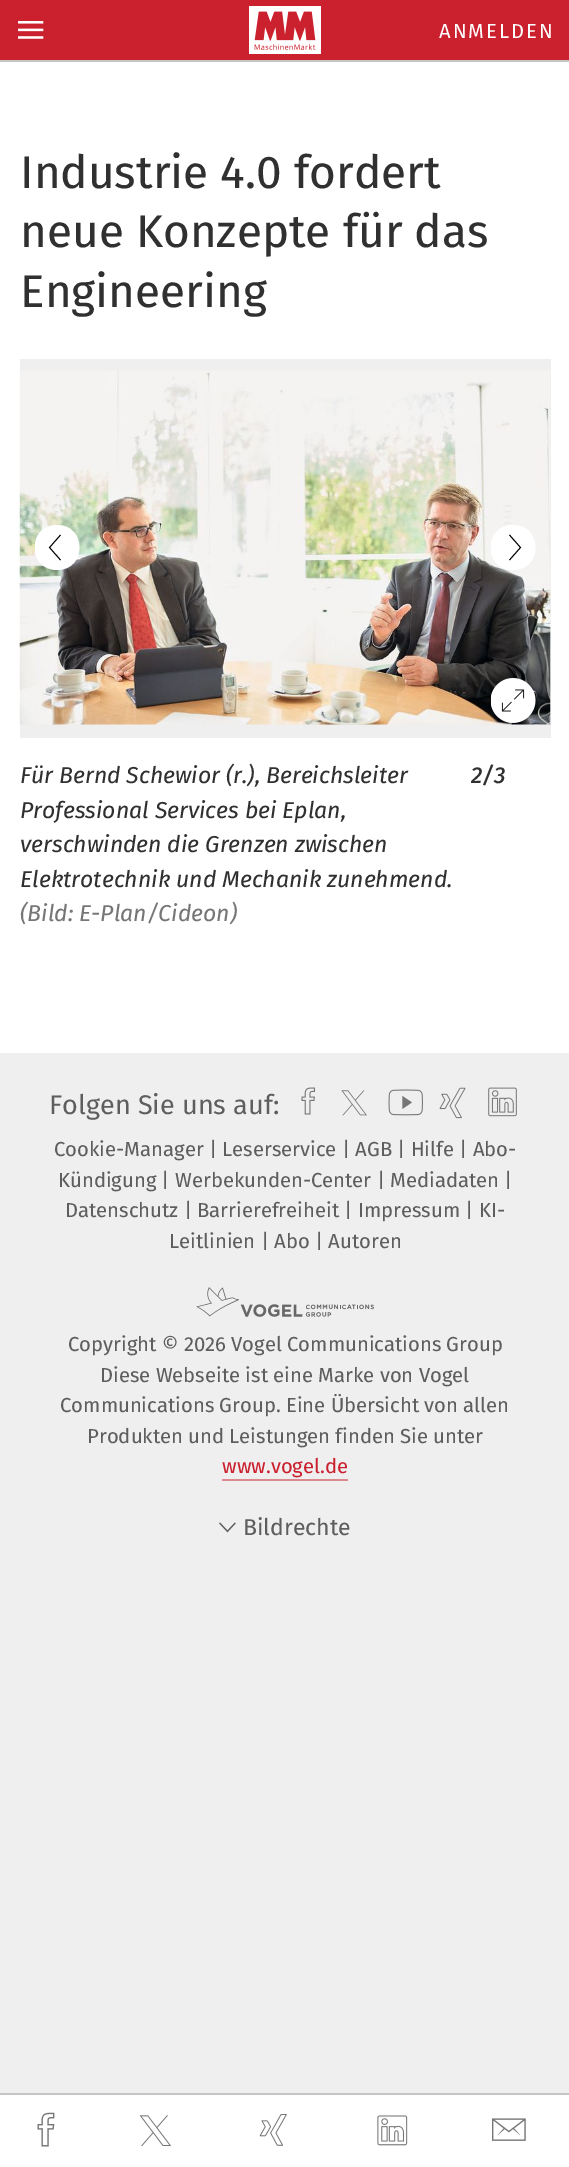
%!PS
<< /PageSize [569 2167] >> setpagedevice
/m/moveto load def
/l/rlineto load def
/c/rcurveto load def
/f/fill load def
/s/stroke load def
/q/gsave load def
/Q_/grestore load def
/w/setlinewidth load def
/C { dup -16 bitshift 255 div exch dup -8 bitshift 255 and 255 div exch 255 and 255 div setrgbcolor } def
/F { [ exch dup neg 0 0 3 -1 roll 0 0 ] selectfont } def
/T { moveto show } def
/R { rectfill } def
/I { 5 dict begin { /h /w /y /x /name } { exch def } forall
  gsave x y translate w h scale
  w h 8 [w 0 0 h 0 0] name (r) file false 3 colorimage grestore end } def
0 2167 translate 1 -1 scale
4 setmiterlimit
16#EFEFEF C
0 0 569 2167 R
16#FFFFFF C
0 62 569 991 R
16#C6C6C6 C
0 60 569 2 R
16#CB212F C
0 0 569 60 R
(1.rgb) 18 21 26 18 I
(2.rgb) 249 6 72 48 I
/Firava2-Regular 20.25 F
16#FFFFFF C
439 38 m 2 0 (ANMELDEN) ashow
/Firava-Regular 45.9 F
16#303030 C
(Industrie 4.0 fordert) 20 188 T
(neue Konzepte für das) 20 247 T
(Engineering) 20 307 T
16#EFEFEF C
20 359 531 379 R
(3.rgb) 19 370 532 355 I
q
35 525 45 45 rectclip
16#FFFFFF C
57 570 m 30 0 30 -45 0 -45 c -30 0 -30 45 0 45 c f
Q_
16#000000 C
.9 w
60.5 535 m -11 12.5 l 11 12.5 l s
q
491 525 45 45 rectclip
16#FFFFFF C
513 525 m -30 0 -30 45 0 45 c 30 0 30 -45 0 -45 c f
Q_
509.5 560 m 11 -12.5 l -11 -12.5 l s
(4.rgb) 491 678 45 45 I
/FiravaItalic-Italic 23 F
16#303030 C
(Für Bernd Schewior \(r.\), Bereichsleiter) 20 783 T
(Professional Services bei Eplan,) 20 818 T
(verschwinden die Grenzen zwischen) 20 852 T
(Elektrotechnik und Mechanik zunehmend.) 20 887 T
16#767676 C
(\(Bild: E-Plan/Cideon\)) 20 921 T
/FiravaItalic-MediumItalic 23 F
16#303030 C
(2/3) 471 783 T
16#FFFFFF C
0 2095 569 72 R
16#C6C6C6 C
0 2093 569 2 R
(5.rgb) 37 2112 18 35 I
(6.rgb) 139 2115 33 31 I
(7.rgb) 259 2114 28 32 I
(8.rgb) 377 2115 31 31 I
(9.rgb) 492 2118 34 23 I
/Firava2-Regular 27 F
16#5E5E5E C
(Folgen Sie uns auf:) 49 1114 T
(10.rgb) 301 1087 14 28 I
(11.rgb) 341 1090 26 26 I
(12.rgb) 388 1089 35 27 I
(13.rgb) 439 1087 27 32 I
(14.rgb) 488 1087 29 30 I
/Firava-Regular 20.25 F
(Cookie-Manager | Leserservice | AGB | Hilfe | Abo-) 54 1156 T
(Kündigung | Werbekunden-Center | Mediadaten |) 58 1187 T
(Datenschutz | Barrierefreiheit | Impressum | KI-) 65 1217 T
(Leitlinien | Abo | Autoren) 169 1248 T
(15.rgb) 196 1287 178 30 I
(Copyright © 2026 Vogel Communications Group) 68 1351 T
(Diese Webseite ist eine Marke von Vogel) 100 1382 T
(Communications Group. Eine Übersicht von allen) 60 1412 T
(Produkten und Leistungen finden Sie unter) 87 1443 T
16#CB212F C
(www.vogel.de) 222 1473 T
16#DD888F C
222 1479 126 2 R
(16.rgb) 219 1522 17 11 I
/Firava-Regular 23 F
16#5E5E5E C
(Bildrechte) 243 1535 T
showpage
